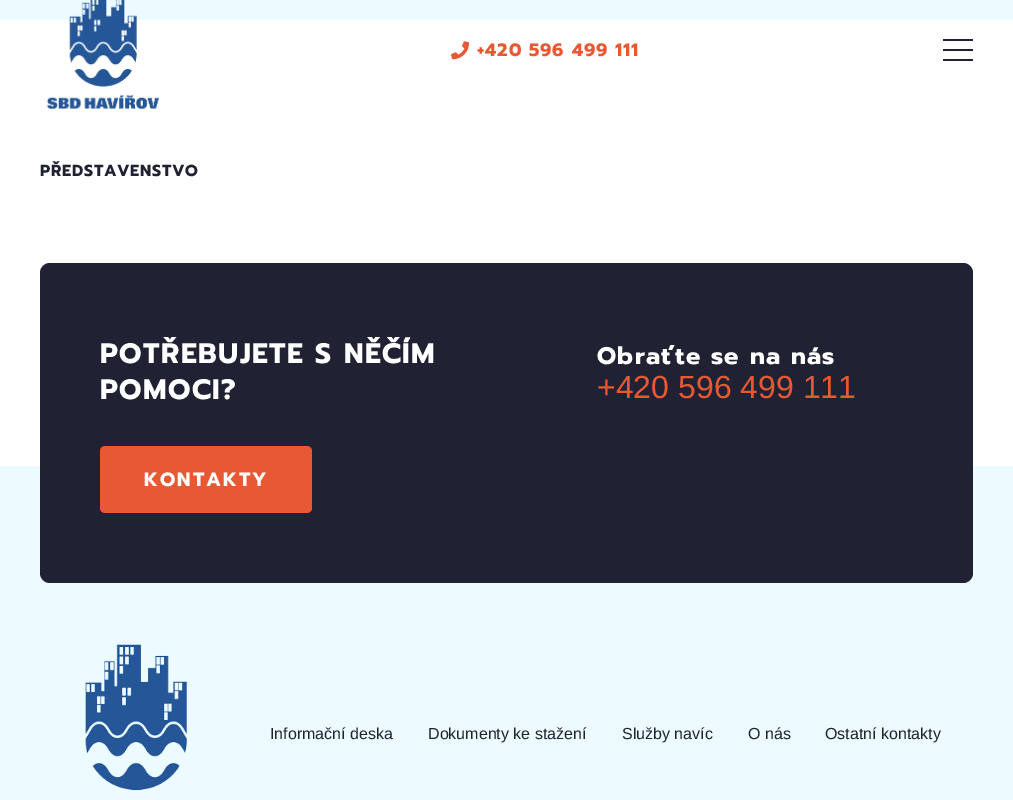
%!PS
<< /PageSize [1013 800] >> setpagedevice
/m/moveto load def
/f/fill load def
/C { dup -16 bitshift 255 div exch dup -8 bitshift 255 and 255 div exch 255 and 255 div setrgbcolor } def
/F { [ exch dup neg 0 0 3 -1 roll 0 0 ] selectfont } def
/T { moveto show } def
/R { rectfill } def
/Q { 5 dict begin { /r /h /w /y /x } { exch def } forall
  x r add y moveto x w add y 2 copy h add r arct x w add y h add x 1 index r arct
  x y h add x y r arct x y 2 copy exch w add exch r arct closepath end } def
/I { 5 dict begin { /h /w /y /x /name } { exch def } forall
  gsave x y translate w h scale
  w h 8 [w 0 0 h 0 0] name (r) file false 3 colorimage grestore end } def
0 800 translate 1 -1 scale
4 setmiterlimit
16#FFFFFF C
0 0 1013 800 R
16#EBFBFF C
0 0 1013 20 R
(1.rgb) 46 0 114 110 I
(2.rgb) 451 41 18 19 I
/Prompt-Bold 18 F
16#E85832 C
477 56 m .9 0 (+420 596 499 111) ashow
16#202133 C
943 49 30 2 R
943 39 30 2 R
943 59 30 2 R
/Prompt-Bold 16 F
40 176 m .75 0 (PŘEDSTAVENSTVO) ashow
16#EBFBFF C
0 466 1013 334 R
16#202133 C
40 263 933 320 10 Q f
/Prompt-Bold 28.1 F
16#FFFFFF C
100 363 m 1.4 0 (POTŘEBUJETE S NĚČÍM) ashow
100 399 m 1.4 0 (POMOCI?) ashow
/Prompt-Bold 24 F
597 364 m 1.25 0 (Obraťte se na nás) ashow
/LiberationSans-Regular 32 F
16#E85832 C
(+420 596 499 111) 597 398 T
100 446 212 67 5 Q f
/Prompt-Bold 19.25 F
16#FFFFFF C
144 486 m 2 0 (KONTAKTY) ashow
(3.rgb) 85 644 102 147 I
/LiberationSans-Regular 16 F
16#202133 C
(Informační deska) 270 739 T
(Dokumenty ke stažení) 428 739 T
(Služby navíc) 622 739 T
(O nás) 748 739 T
(Ostatní kontakty) 825 739 T
showpage
